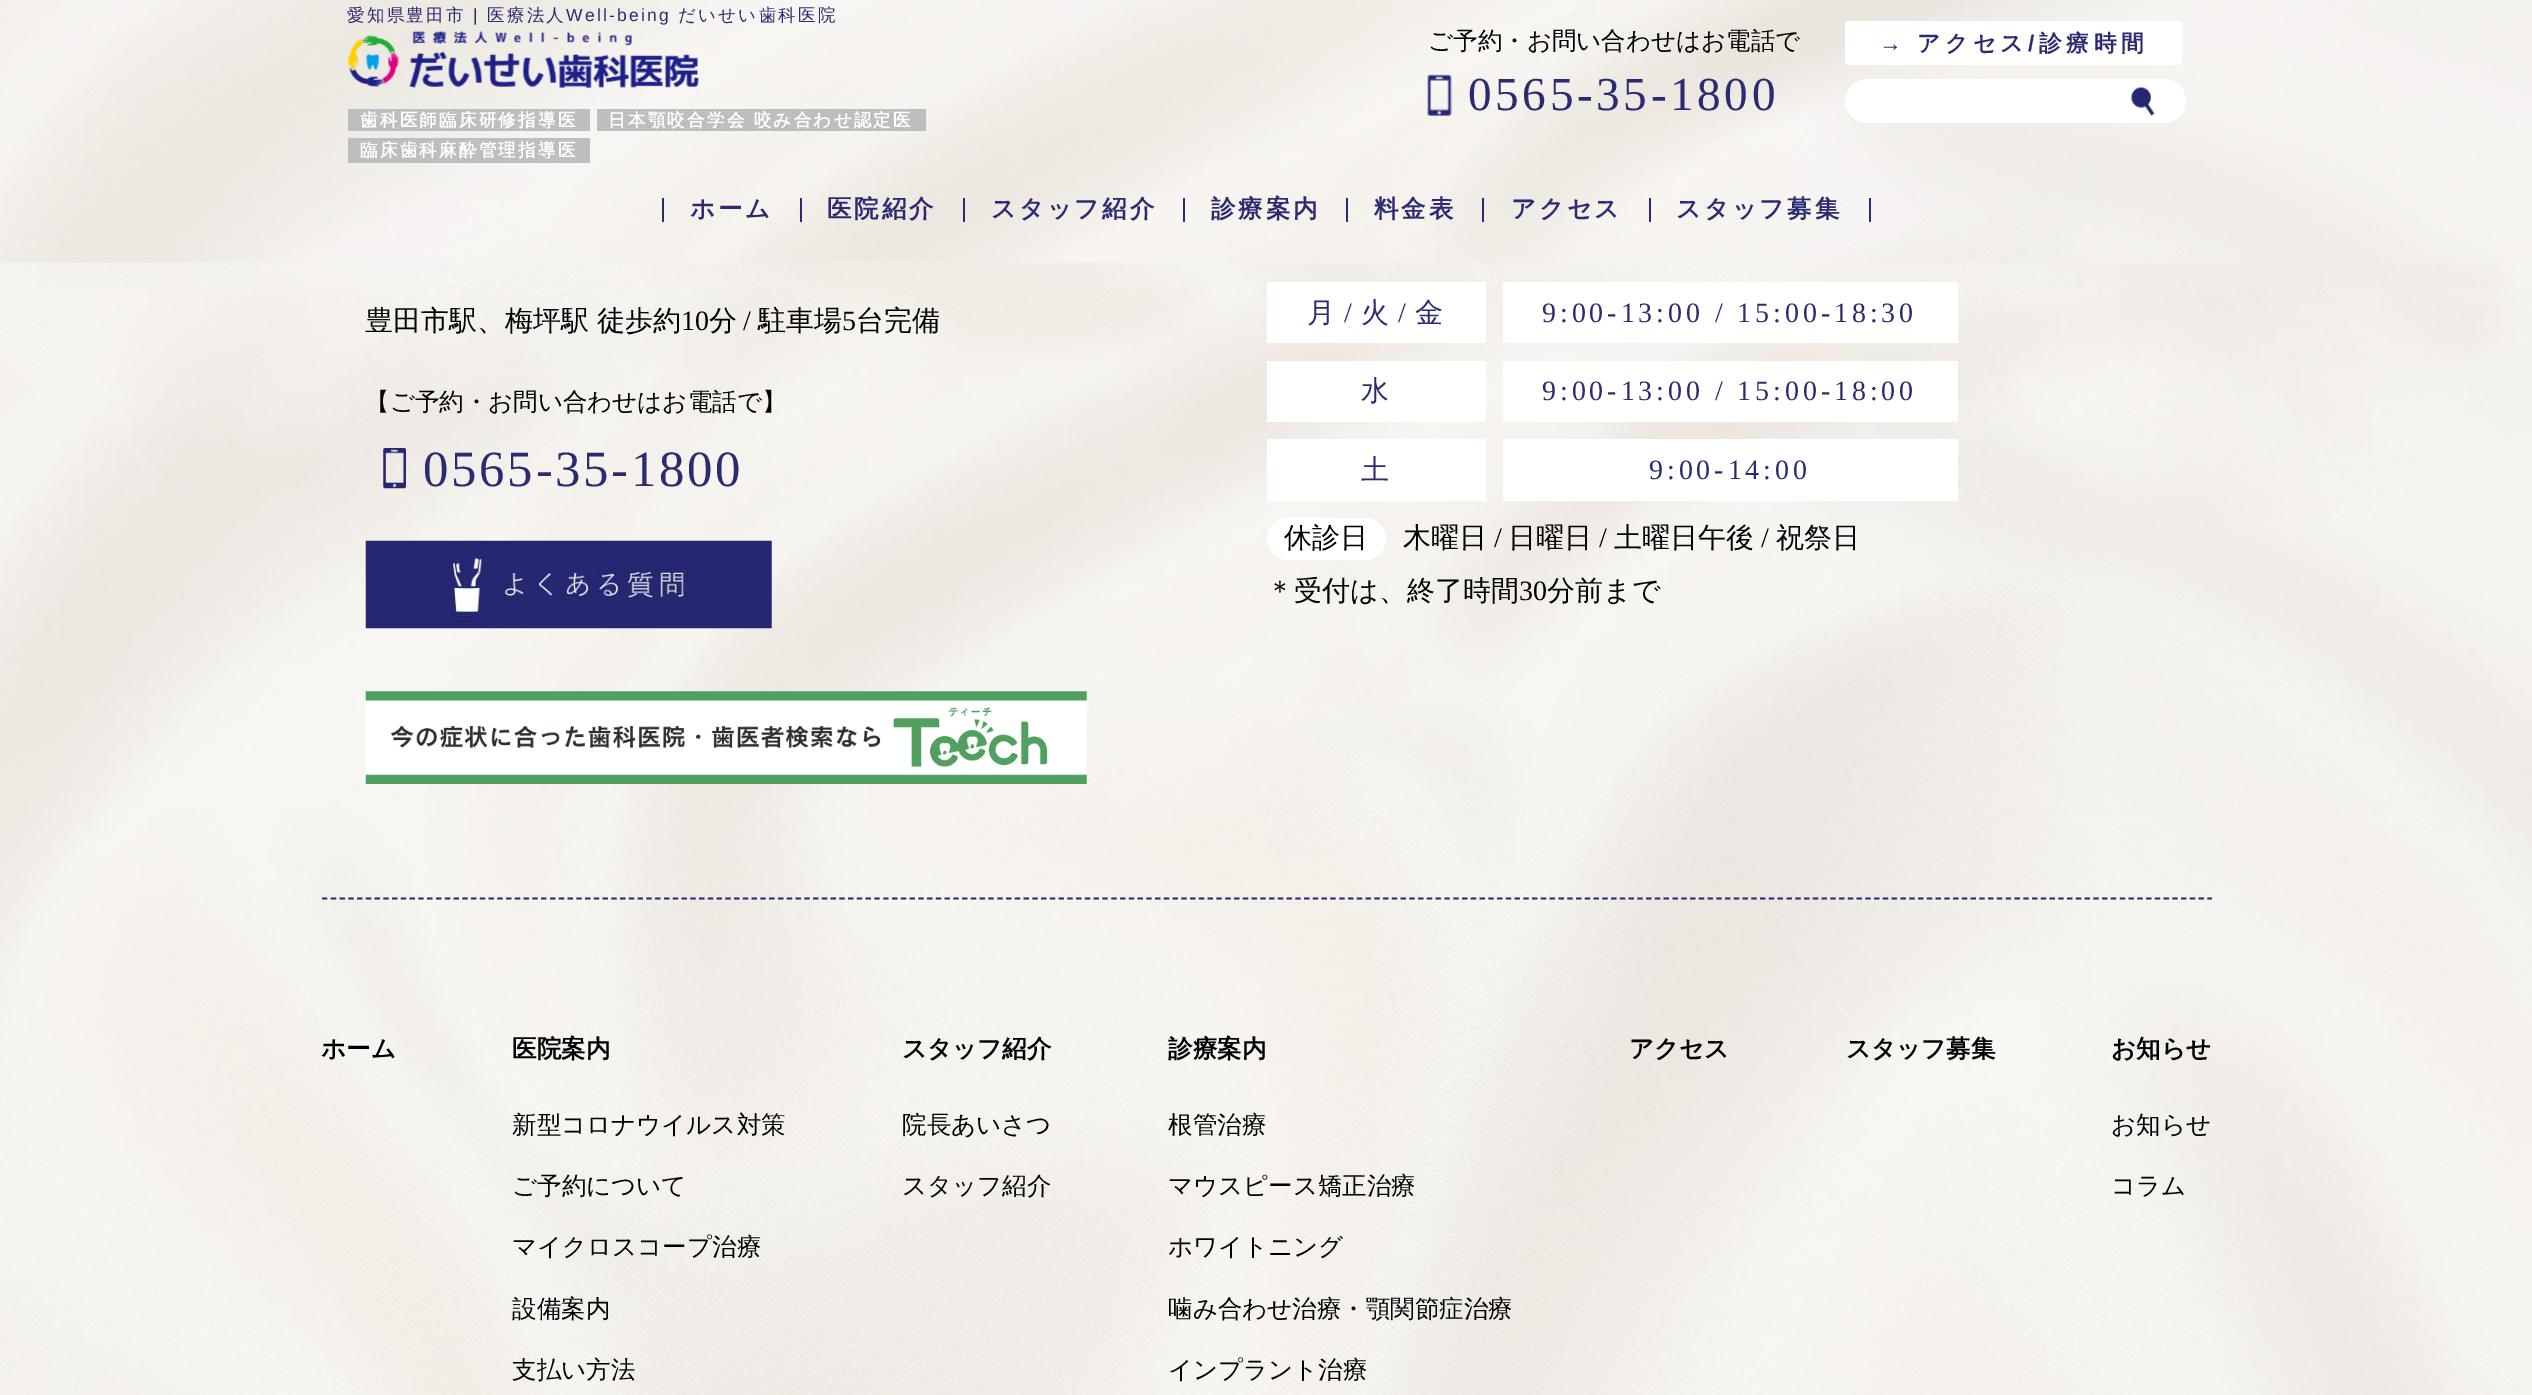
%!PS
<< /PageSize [2532 1395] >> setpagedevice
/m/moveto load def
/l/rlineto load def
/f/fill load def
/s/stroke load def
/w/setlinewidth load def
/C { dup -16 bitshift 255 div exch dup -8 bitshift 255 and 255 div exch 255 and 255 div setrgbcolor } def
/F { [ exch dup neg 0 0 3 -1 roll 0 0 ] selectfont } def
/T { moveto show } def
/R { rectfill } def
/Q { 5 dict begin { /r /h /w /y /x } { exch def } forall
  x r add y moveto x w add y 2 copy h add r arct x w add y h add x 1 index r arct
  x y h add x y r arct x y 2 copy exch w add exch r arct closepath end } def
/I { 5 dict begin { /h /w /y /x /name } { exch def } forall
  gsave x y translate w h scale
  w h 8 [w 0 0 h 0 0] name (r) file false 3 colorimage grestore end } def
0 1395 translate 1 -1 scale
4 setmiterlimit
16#FFFFFF C
0 0 2532 1395 R
(1.rgb) 0 262 2532 1133 I
(2.rgb) 0 0 2532 263 I
/WenQuanYiZenHei-Medium 17.5 F
16#2A2B70 C
347 21 m 2.25 0 (愛知県豊田市) ashow
/LiberationSans-Regular 17.5 F
473 21 m 2.25 0 (|) ashow
/WenQuanYiZenHei-Medium 17.5 F
487 21 m 2.25 0 (医療法人) ashow
/LiberationSans-Regular 17.5 F
566 21 m 2.25 0 (Well-being) ashow
/WenQuanYiZenHei-Medium 17.5 F
678 21 m 2.25 0 (だいせい歯科医院) ashow
(3.rgb) 347 30 352 58 I
16#BEBEBE C
348 109 242 22 R
/WenQuanYiZenHei-Bold 17.5 F
16#FFFFFF C
360 126 m 2.25 0 (歯科医師臨床研修指導医) ashow
16#BEBEBE C
597 109 329 22 R
16#FFFFFF C
608 126 m 2.25 0 (日本顎咬合学会 咬み合わせ認定医) ashow
16#BEBEBE C
348 138 242 25 R
16#FFFFFF C
360 156 m 2.25 0 (臨床歯科麻酔管理指導医) ashow
/WenQuanYiZenHei-Medium 24.5 F
16#000000 C
(ご予約・お問い合わせはお電話で) 1428 49 T
(4.rgb) 1427 74 25 42 I
/LiberationSerif-Regular 47.25 F
16#2A2B70 C
1468 110 m 3.6 0 (0565-35-1800) ashow
16#FFFFFF C
1845 21 337 44 2 Q f
/LiberationSans-Bold 22.75 F
16#2A2B70 C
1879 51 m 4.5 0 (→) ashow
/WenQuanYiZenHei-Bold 22.75 F
1917 51 m 4.5 0 (アクセス) ashow
/LiberationSans-Bold 22.75 F
2028 51 m 4.5 0 (/) ashow
/WenQuanYiZenHei-Bold 22.75 F
2039 51 m 4.5 0 (診療時間) ashow
16#FFFFFF C
1845 79 341 44 22 Q f
(5.rgb) 2131 87 24 29 I
16#2A2B70 C
800 198 2 24 R
662 198 2 24 R
/WenQuanYiZenHei-Bold 24.5 F
690 217 m 2.75 0 (ホーム) ashow
963 198 2 24 R
827 217 m 2.75 0 (医院紹介) ashow
1183 198 2 24 R
991 217 m 2.75 0 (スタッフ紹介) ashow
1346 198 2 24 R
1211 217 m 2.75 0 (診療案内) ashow
1482 198 2 24 R
1374 217 m 2.75 0 (料金表) ashow
1649 198 2 24 R
1511 217 m 2.75 0 (アクセス) ashow
1869 198 2 24 R
1676 217 m 2.75 0 (スタッフ募集) ashow
1.8 w
[5.25 3.52] 0 setdash
322 898.5 m 1890 0 l s
/WenQuanYiZenHei-Medium 28 F
16#000000 C
(豊田市駅、梅坪駅 徒歩約) 365 330 T
/LiberationSerif-Regular 28 F
(10) 681 330 T
/WenQuanYiZenHei-Medium 28 F
(分) 709 330 T
/LiberationSerif-Regular 28 F
(/) 743 330 T
/WenQuanYiZenHei-Medium 28 F
(駐車場) 758 330 T
/LiberationSerif-Regular 28 F
(5) 842 330 T
/WenQuanYiZenHei-Medium 28 F
(台完備) 856 330 T
/WenQuanYiZenHei-Medium 24.5 F
(【ご予約・お問い合わせはお電話で】) 365 410 T
(6.rgb) 383 448 23 41 I
/LiberationSerif-Regular 50.75 F
16#2A2B70 C
423 486 m 2.75 0 (0565-35-1800) ashow
(7.rgb) 365 540 407 89 I
(8.rgb) 365 691 722 93 I
16#FFFFFF C
1267 282 219 61 R
/WenQuanYiZenHei-Medium 28 F
16#2A2B70 C
1307 322 m 1 0 (月) ashow
/LiberationSerif-Regular 28 F
1344 322 m 1 0 (/) ashow
/WenQuanYiZenHei-Medium 28 F
1361 322 m 1 0 (火) ashow
/LiberationSerif-Regular 28 F
1398 322 m 1 0 (/) ashow
/WenQuanYiZenHei-Medium 28 F
1415 322 m 1 0 (金) ashow
16#FFFFFF C
1503 282 455 61 R
/LiberationSerif-Regular 28 F
16#2A2B70 C
1542 322 m 3.9 0 (9:00-13:00 / 15:00-18:30) ashow
16#FFFFFF C
1267 361 219 61 R
/WenQuanYiZenHei-Medium 28 F
16#2A2B70 C
1361 400 m 1 0 (水) ashow
16#FFFFFF C
1503 361 455 61 R
/LiberationSerif-Regular 28 F
16#2A2B70 C
1542 400 m 3.9 0 (9:00-13:00 / 15:00-18:00) ashow
16#FFFFFF C
1267 439 219 62 R
/WenQuanYiZenHei-Medium 28 F
16#2A2B70 C
1361 479 m 1 0 (土) ashow
16#FFFFFF C
1503 439 455 62 R
/LiberationSerif-Regular 28 F
16#2A2B70 C
1649 479 m 3.9 0 (9:00-14:00) ashow
16#FFFFFF C
1267 518 119 42 21 Q f
/WenQuanYiZenHei-Medium 28 F
16#000000 C
(休診日) 1284 547 T
(木曜日) 1403 547 T
/LiberationSerif-Regular 28 F
(/) 1494 547 T
/WenQuanYiZenHei-Medium 28 F
(日曜日) 1508 547 T
/LiberationSerif-Regular 28 F
(/) 1599 547 T
/WenQuanYiZenHei-Medium 28 F
(土曜日午後) 1614 547 T
/LiberationSerif-Regular 28 F
(/) 1761 547 T
/WenQuanYiZenHei-Medium 28 F
(祝祭日) 1776 547 T
(＊受付は、終了時間) 1266 600 T
/LiberationSerif-Regular 28 F
(30) 1519 600 T
/WenQuanYiZenHei-Medium 28 F
(分前まで) 1547 600 T
/WenQuanYiZenHei-Bold 24.5 F
(ホーム) 321 1057 T
(医院案内) 512 1057 T
/WenQuanYiZenHei-Medium 24.5 F
(新型コロナウイルス対策) 512 1133 T
(ご予約について) 512 1194 T
(マイクロスコープ治療) 512 1255 T
(設備案内) 512 1317 T
(支払い方法) 512 1378 T
/WenQuanYiZenHei-Bold 24.5 F
(スタッフ紹介) 902 1057 T
/WenQuanYiZenHei-Medium 24.5 F
(院長あいさつ) 902 1133 T
(スタッフ紹介) 902 1194 T
/WenQuanYiZenHei-Bold 24.5 F
(診療案内) 1168 1057 T
/WenQuanYiZenHei-Medium 24.5 F
(根管治療) 1168 1133 T
(マウスピース矯正治療) 1168 1194 T
(ホワイトニング) 1168 1255 T
(噛み合わせ治療・顎関節症治療) 1168 1317 T
(インプラント治療) 1168 1378 T
/WenQuanYiZenHei-Bold 24.5 F
(アクセス) 1629 1057 T
(スタッフ募集) 1846 1057 T
(お知らせ) 2111 1057 T
/WenQuanYiZenHei-Medium 24.5 F
(お知らせ) 2111 1133 T
(コラム) 2111 1194 T
showpage
